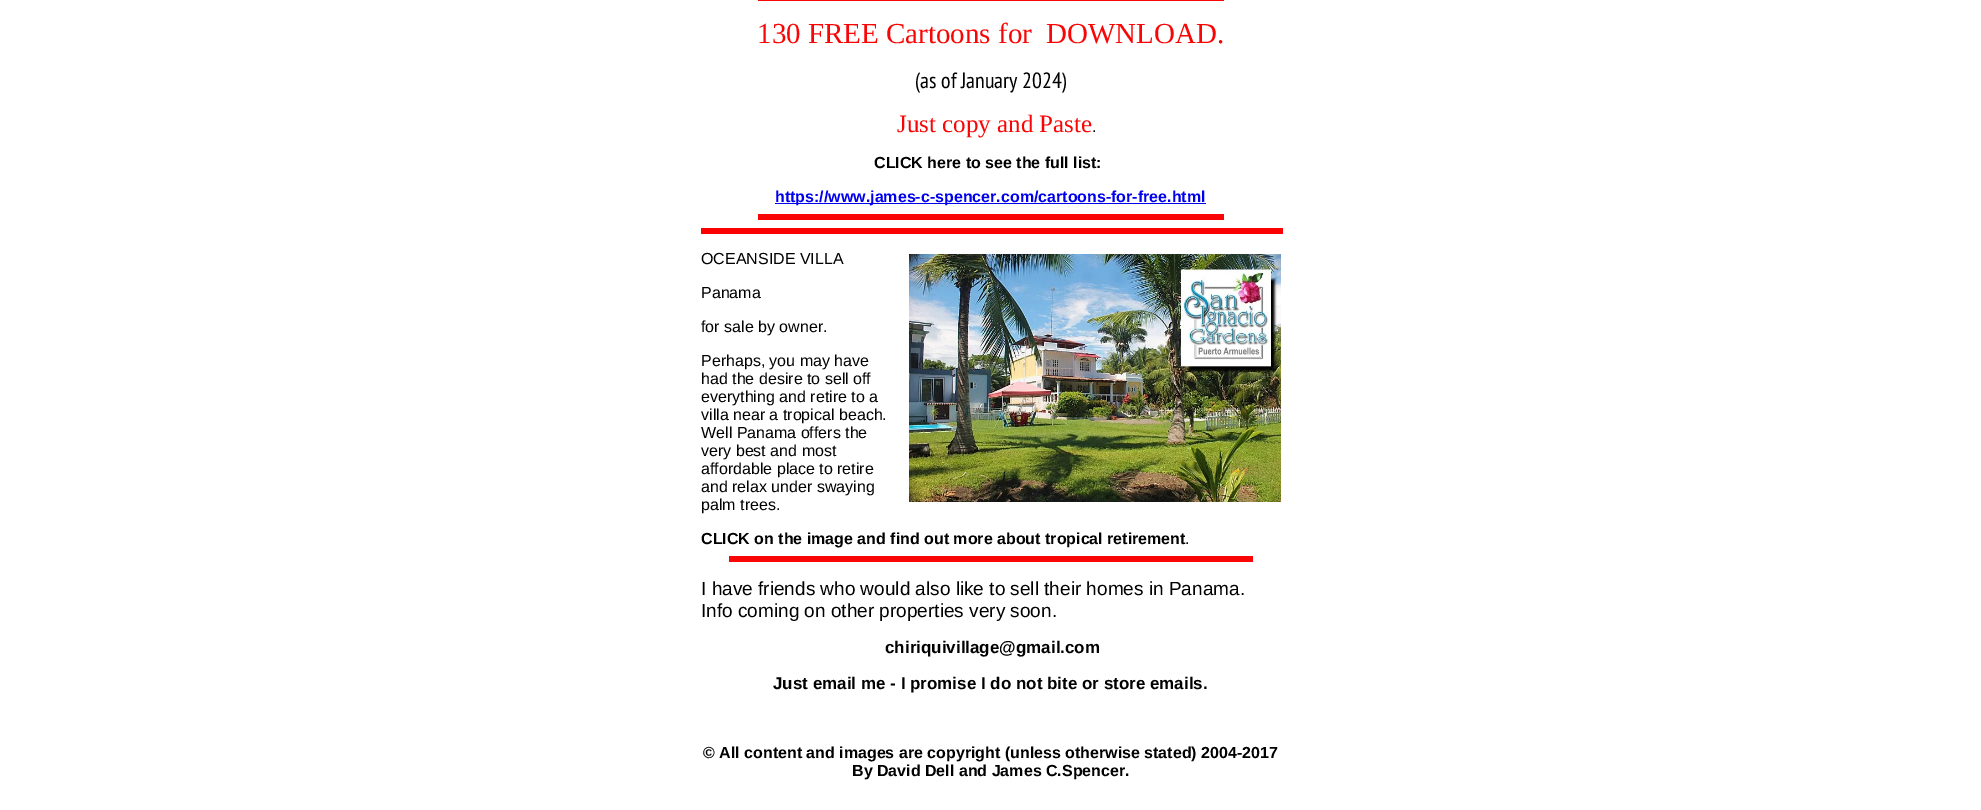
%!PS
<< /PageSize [1981 810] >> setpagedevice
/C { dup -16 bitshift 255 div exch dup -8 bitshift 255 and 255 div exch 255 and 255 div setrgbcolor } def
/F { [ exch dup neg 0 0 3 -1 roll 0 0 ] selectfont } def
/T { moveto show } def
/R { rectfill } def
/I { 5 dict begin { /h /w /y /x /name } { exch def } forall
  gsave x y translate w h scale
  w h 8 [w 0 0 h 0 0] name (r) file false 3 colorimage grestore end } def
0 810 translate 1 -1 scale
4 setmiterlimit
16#FFFFFF C
0 0 1981 810 R
16#FA0505 C
758 0 466 1 R
/LiberationSerif-Regular 29 F
(130 FREE Cartoons for  DOWNLOAD.) 757 43 T
/PTSansNarrow-Regular 22 F
16#000000 C
(\(as of January 2024\)) 915 88 T
/LiberationSerif-Regular 25 F
16#FA0505 C
(Just copy and Paste) 897 132 T
/LiberationSans-Regular 16 F
16#000000 C
(.) 1092 132 T
/LiberationSans-Bold 16 F
(CLICK here to see the full list:) 874 168 T
16#0000EE C
775 203 431 1 R
(https://www.james-c-spencer.com/cartoons-for-free.html) 775 202 T
16#FA0505 C
758 214 466 6 R
16#FA0202 C
701 228 582 6 R
/LiberationSans-Regular 16 F
16#000000 C
(OCEANSIDE VILLA) 701 264 T
(1.rgb) 909 254 372 248 I
(Panama) 701 298 T
(for sale by owner.) 701 332 T
(Perhaps, you may have) 701 366 T
(had the desire to sell off) 701 384 T
(everything and retire to a) 701 402 T
(villa near a tropical beach.) 701 420 T
(Well Panama offers the) 701 438 T
(very best and most) 701 456 T
(affordable place to retire) 701 474 T
(and relax under swaying) 701 492 T
(palm trees.) 701 510 T
/LiberationSans-Bold 16 F
(CLICK on the image and find out more about tropical retirement) 701 544 T
/LiberationSans-Regular 16 F
(.) 1185 544 T
16#FA0505 C
729 556 524 6 R
/LiberationSans-Regular 19 F
16#000000 C
(I have friends who would also like to sell their homes in Panama.) 701 595 T
(Info coming on other properties very soon.) 701 617 T
/LiberationSans-Bold 17 F
(chiriquivillage@gmail.com) 885 653 T
(Just email me - I promise I do not bite or store emails.) 773 689 T
/LiberationSans-Bold 16 F
(© All content and images are copyright \(unless otherwise stated\) 2004-2017) 703 758 T
(By David Dell and James C.Spencer.) 852 776 T
showpage
